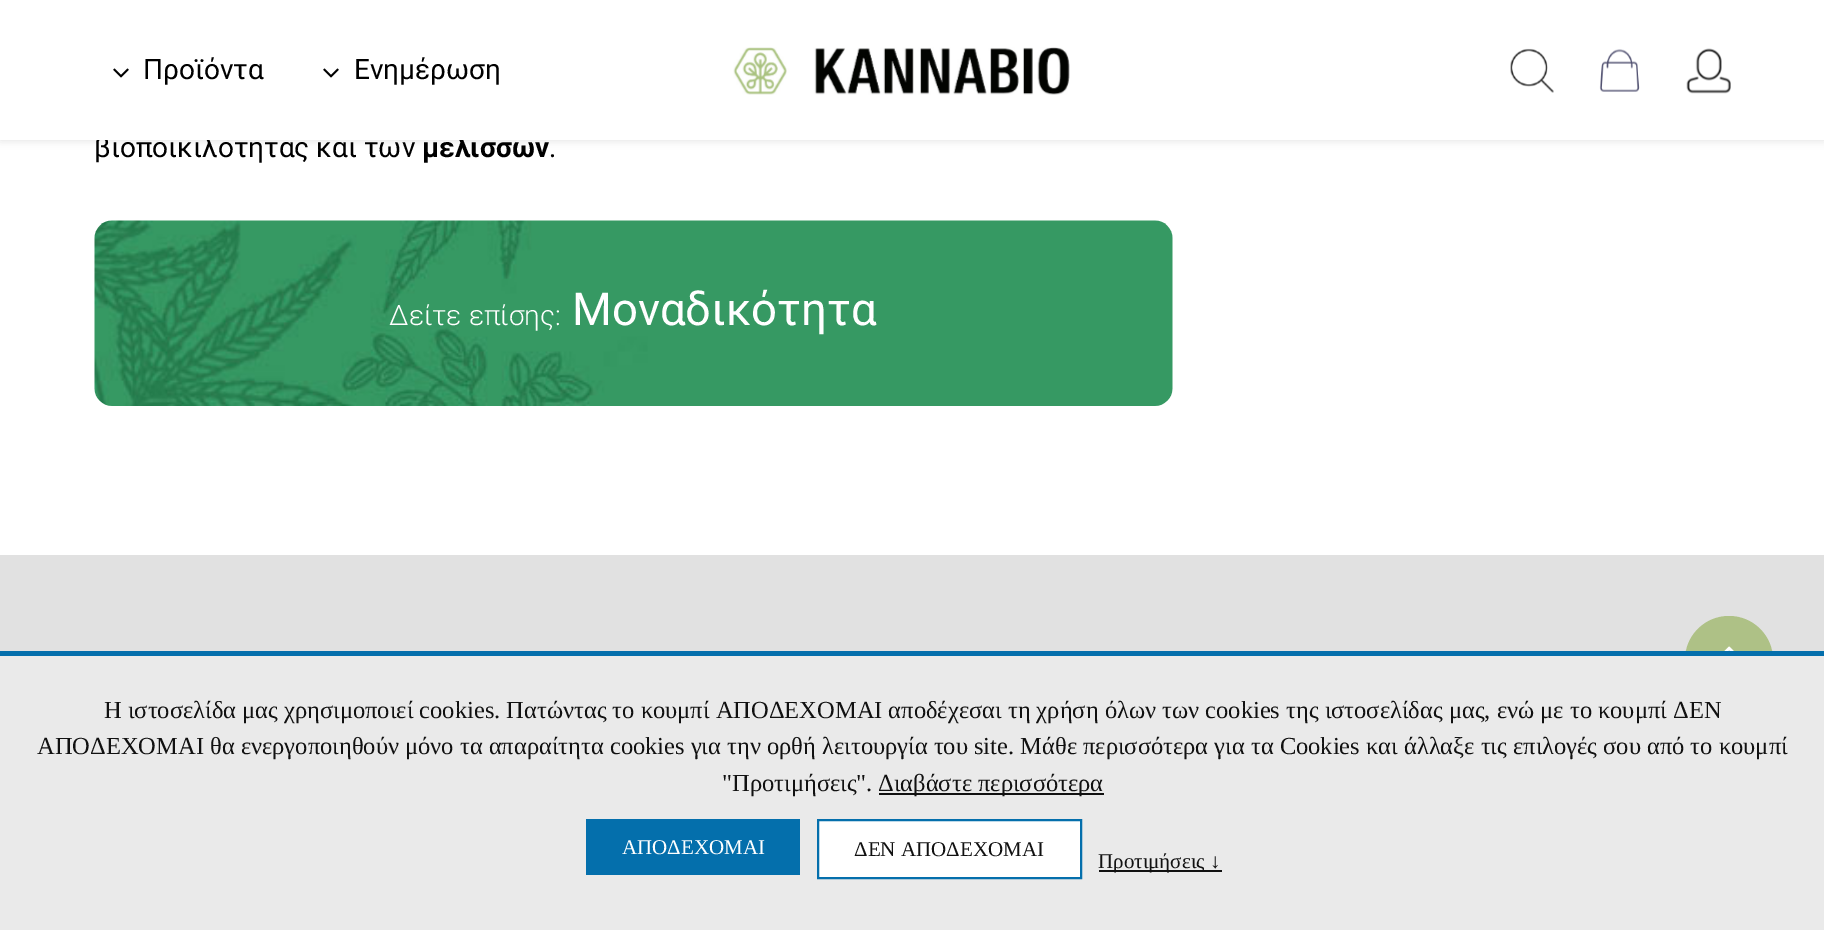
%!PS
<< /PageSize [1824 930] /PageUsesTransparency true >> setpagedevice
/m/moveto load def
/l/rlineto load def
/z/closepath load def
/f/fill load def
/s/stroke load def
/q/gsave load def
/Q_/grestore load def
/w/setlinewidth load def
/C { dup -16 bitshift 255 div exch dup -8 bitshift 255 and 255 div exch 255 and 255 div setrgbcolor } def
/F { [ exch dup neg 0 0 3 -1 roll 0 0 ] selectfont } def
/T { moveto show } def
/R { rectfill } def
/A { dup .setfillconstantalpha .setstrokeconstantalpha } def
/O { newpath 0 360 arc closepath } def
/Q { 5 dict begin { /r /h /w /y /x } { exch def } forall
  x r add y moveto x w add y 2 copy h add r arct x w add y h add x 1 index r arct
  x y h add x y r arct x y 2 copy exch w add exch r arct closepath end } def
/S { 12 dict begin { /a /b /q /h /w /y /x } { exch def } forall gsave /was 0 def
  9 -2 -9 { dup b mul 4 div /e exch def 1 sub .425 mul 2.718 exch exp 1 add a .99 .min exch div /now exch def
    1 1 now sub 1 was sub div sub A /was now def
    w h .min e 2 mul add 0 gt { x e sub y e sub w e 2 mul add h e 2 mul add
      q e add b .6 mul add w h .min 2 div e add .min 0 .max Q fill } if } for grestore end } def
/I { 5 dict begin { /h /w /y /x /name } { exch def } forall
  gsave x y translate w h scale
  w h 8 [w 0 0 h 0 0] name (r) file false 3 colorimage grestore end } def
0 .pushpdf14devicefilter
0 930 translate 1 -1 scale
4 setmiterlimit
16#FFFFFF C
0 0 1824 930 R
16#000000 C
0 0 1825 140 0 4.5 .12 S
/Roboto-Regular 28 F
(βιοποικιλότητας και των) 94 157 T
/Roboto-Bold 28 F
(μελισσών) 422 157 T
16#FFFFFF C
0 0 1824 140 R
(1.rgb) 113 68 16 10 I
/Roboto-Regular 28 F
16#000000 C
(Προϊόντα) 143 79 T
(1.rgb) 323 68 16 10 I
(Ενημέρωση) 354 79 T
(2.rgb) 733 47 337 48 I
(3.rgb) 1510 48 44 45 I
(4.rgb) 1599 49 41 43 I
(5.rgb) 1686 48 45 46 I
(.) 549 157 T
(6.rgb) 94 220 1079 186 I
/Roboto-Light 28 F
16#FFFFFF C
(Δείτε επίσης:) 389 325 T
/Roboto-Regular 45.5 F
(Μοναδικότητα) 572 325 T
16#E1E1E1 C
0 555 1824 96 R
16#AEC186 C
1729 660 44 O f
(7.rgb) 1724 646 10 5 I
16#EAEAEA C
0 656 1824 274 R
16#046FAC C
0 651 1824 5 R
/LiberationSerif-Regular 24.5 F
16#111111 C
(Η ιστοσελίδα μας χρησιμοποιεί cookies. Πατώντας το κουμπί ΑΠΟΔΕΧΟΜΑΙ αποδέχεσαι τη χρήση όλων των cookies της ιστοσελίδας μας, ενώ με το κουμπί ΔΕΝ) 104 718 T
(ΑΠΟΔΕΧΟΜΑΙ θα ενεργοποιηθούν μόνο τα απαραίτητα cookies για την ορθή λειτουργία του site. Μάθε περισσότερα για τα Cookies και άλλαξε τις επιλογές σου από το κουμπί) 37 754 T
("Προτιμήσεις".) 722 791 T
879 793 225 2 R
(Διαβάστε περισσότερα) 878 791 T
16#046FAC C
586 819 214 56 R
/LiberationSerif-Regular 21 F
16#FFFFFF C
(ΑΠΟΔΕΧΟΜΑΙ) 622 854 T
818 820 m 263 0 l 0 58 l -263 0 l z q f Q_
16#046FAC C
2 w
s
16#111111 C
(ΔΕΝ ΑΠΟΔΕΧΟΜΑΙ) 854 856 T
1099 870 123 2 R
(Προτιμήσεις ↓) 1098 868 T
.poppdf14devicefilter showpage
